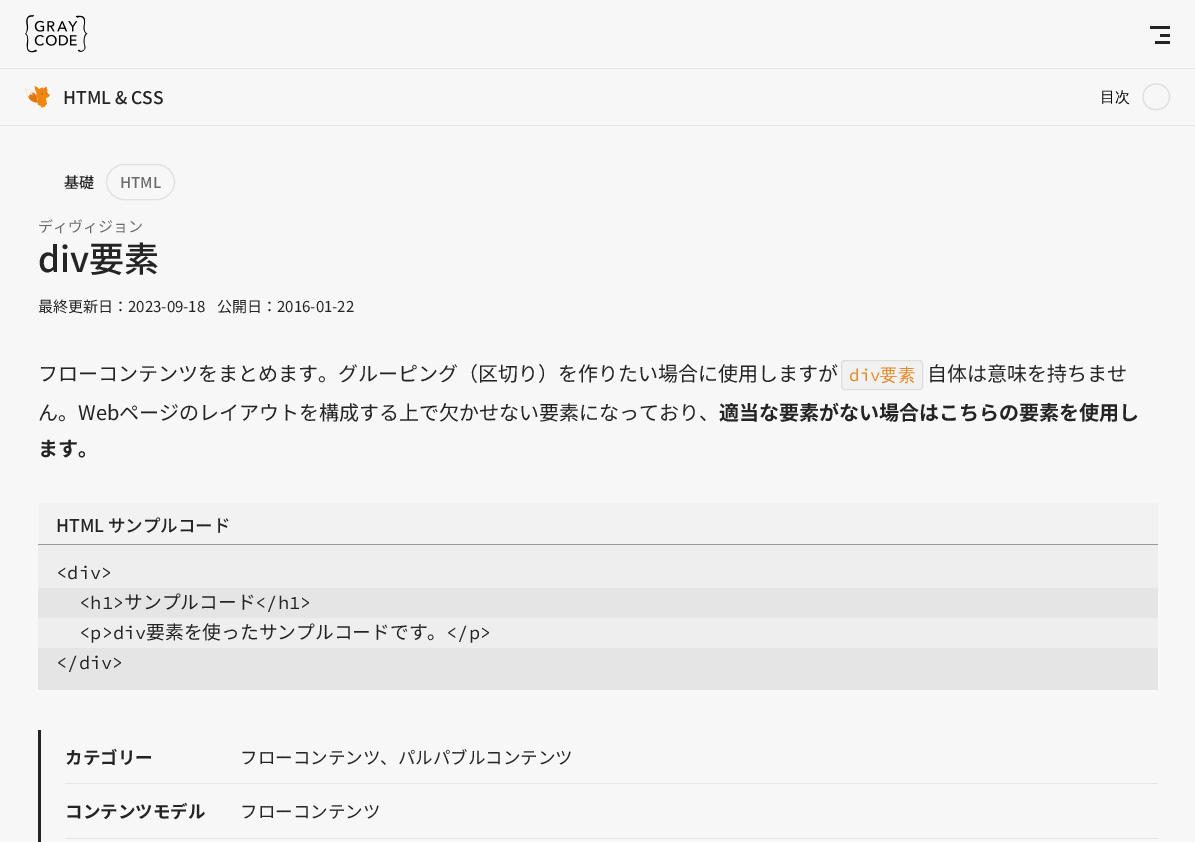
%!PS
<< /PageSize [1195 842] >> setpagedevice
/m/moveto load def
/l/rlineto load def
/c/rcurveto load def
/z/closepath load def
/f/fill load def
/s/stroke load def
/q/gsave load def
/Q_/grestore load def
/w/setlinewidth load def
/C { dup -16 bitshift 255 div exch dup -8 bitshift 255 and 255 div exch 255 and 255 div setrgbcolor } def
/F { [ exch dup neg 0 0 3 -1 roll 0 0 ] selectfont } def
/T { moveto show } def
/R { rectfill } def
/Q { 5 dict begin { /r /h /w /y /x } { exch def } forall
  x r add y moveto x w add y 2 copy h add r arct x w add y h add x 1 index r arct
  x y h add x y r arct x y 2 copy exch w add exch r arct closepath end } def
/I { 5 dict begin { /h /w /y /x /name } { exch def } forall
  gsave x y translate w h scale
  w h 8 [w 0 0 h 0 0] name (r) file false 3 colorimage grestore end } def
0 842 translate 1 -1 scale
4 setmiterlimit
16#F7F7F7 C
0 0 1195 842 R
16#E5E5E5 C
0 68 1195 1 R
(1.rgb) 25 15 63 38 I
16#242424 C
1150 26 20 3 R
1160 34 10 3 R
1155 41 15 3 R
16#E5E5E5 C
0 125 1195 1 R
(2.rgb) 25 86 25 22 I
/NotoSansJP-Medium 17.5 F
16#242424 C
(HTML & CSS) 63 104 T
/WenQuanYiZenHei-Medium 15 F
16#000000 C
(目次) 1100 102 T
16#E0E0E0 C
1.2 w
1143 97 m 0 -17.5 26.5 -17.5 26.5 0 c 0 17 -26.5 17 -26.5 0 c z s
/NotoSansJP-Medium 15 F
16#242424 C
(基礎) 64 188 T
16#E0E0E0 C
1 w
106.5 164.5 68 35 17.5 Q s
16#6B6B6B C
(HTML) 120 188 T
/NotoSansJP-Regular 15 F
(ディヴィジョン) 38 232 T
/NotoSansJP-Medium 35 F
16#242424 C
(div要素) 38 272 T
/NotoSansJP-Regular 15 F
(最終更新日：2023-09-18) 38 312 T
(公開日：2016-01-22) 217 312 T
/NotoSansJP-Regular 20 F
(フローコンテンツをまとめます。グルーピング（区切り）を作りたい場合に使用しますが) 38 381 T
16#F1F1F1 C
841.5 360.5 81 29 3.5 Q q f Q_
16#DDDDDD C
s
/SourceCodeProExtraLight-Regular 17.5 F
16#E28824 C
(div) 849 381 T
/WenQuanYiZenHei-Medium 17.5 F
(要素) 880 381 T
/NotoSansJP-Regular 20 F
16#242424 C
(自体は意味を持ちませ) 927 381 T
(ん。Webページのレイアウトを構成する上で欠かせない要素になっており、) 38 420 T
/NotoSansJP-Bold 20 F
(適当な要素がない場合はこちらの要素を使用し) 719 420 T
(ます。) 38 456 T
16#F2F2F2 C
40.5 503 m 1115 0 l 1.5 0 2.5 1 2.5 2.5 c 0 39.5 l -1120 0 l 0 -39.5 l 0 -1.5 1 -2.5 2.5 -2.5 c z f
16#999999 C
38 544 1120 1 R
/NotoSansJP-Medium 17.5 F
16#242424 C
(HTML サンプルコード) 56 532 T
16#EEEEEE C
38 545 1120 103 R
/SourceCodeProExtraLight-Regular 18.75 F
16#242424 C
(<div>) 56 579 T
16#E5E5E5 C
38 588 1120 30 R
16#242424 C
(<h1>) 79 609 T
/NotoSansJP-Regular 18.75 F
(サンプルコード) 124 609 T
/SourceCodeProExtraLight-Regular 18.75 F
(</h1>) 255 609 T
(<p>div) 79 639 T
/NotoSansJP-Regular 18.75 F
(要素を使ったサンプルコードです。) 146 639 T
/SourceCodeProExtraLight-Regular 18.75 F
(</p>) 446 639 T
16#E5E5E5 C
38 648 1120 42 R
16#242424 C
(</div>) 56 669 T
38 730 3 112 R
16#E5E5E5 C
65 783 1093 1 R
/NotoSansJP-Bold 17.5 F
16#242424 C
(カテゴリー) 65 764 T
/NotoSansJP-Regular 17.5 F
(フローコンテンツ、パルパブルコンテンツ) 240 764 T
16#E5E5E5 C
65 838 1093 1 R
/NotoSansJP-Bold 17.5 F
16#242424 C
(コンテンツモデル) 65 818 T
/NotoSansJP-Regular 17.5 F
(フローコンテンツ) 240 818 T
showpage
